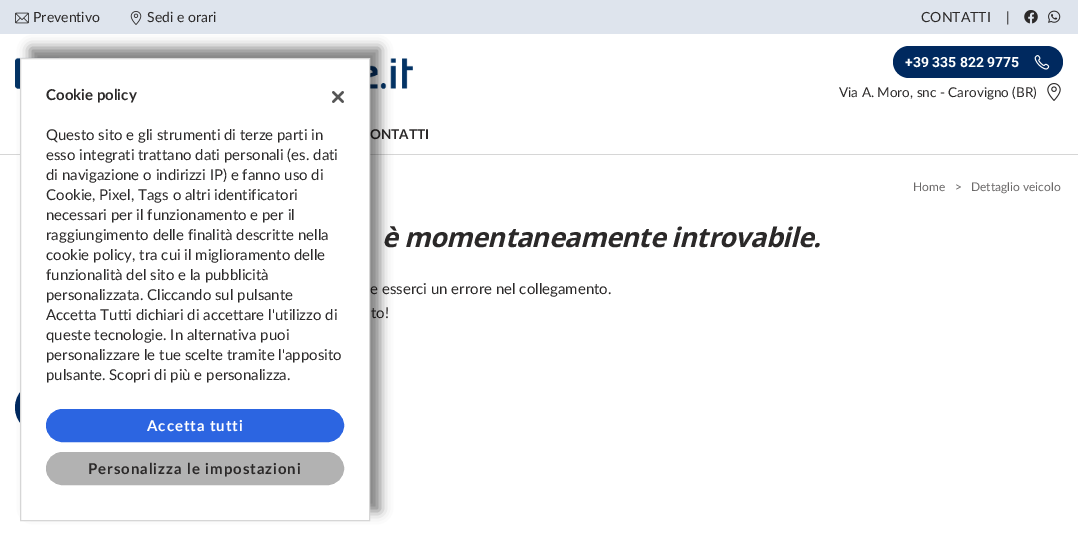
%!PS
<< /PageSize [1078 541] /PageUsesTransparency true >> setpagedevice
/m/moveto load def
/l/rlineto load def
/z/closepath load def
/f/fill load def
/s/stroke load def
/q/gsave load def
/Q_/grestore load def
/w/setlinewidth load def
/C { dup -16 bitshift 255 div exch dup -8 bitshift 255 and 255 div exch 255 and 255 div setrgbcolor } def
/F { [ exch dup neg 0 0 3 -1 roll 0 0 ] selectfont } def
/T { moveto show } def
/R { rectfill } def
/A { dup .setfillconstantalpha .setstrokeconstantalpha } def
/Q { 5 dict begin { /r /h /w /y /x } { exch def } forall
  x r add y moveto x w add y 2 copy h add r arct x w add y h add x 1 index r arct
  x y h add x y r arct x y 2 copy exch w add exch r arct closepath end } def
/S { 12 dict begin { /a /b /q /h /w /y /x } { exch def } forall gsave /was 0 def
  9 -2 -9 { dup b mul 4 div /e exch def 1 sub .425 mul 2.718 exch exp 1 add a .99 .min exch div /now exch def
    1 1 now sub 1 was sub div sub A /was now def
    w h .min e 2 mul add 0 gt { x e sub y e sub w e 2 mul add h e 2 mul add
      q e add b .6 mul add w h .min 2 div e add .min 0 .max Q fill } if } for grestore end } def
/I { 5 dict begin { /h /w /y /x /name } { exch def } forall
  gsave x y translate w h scale
  w h 8 [w 0 0 h 0 0] name (r) file false 3 colorimage grestore end } def
0 .pushpdf14devicefilter
0 541 translate 1 -1 scale
4 setmiterlimit
16#FFFFFF C
0 0 1078 541 R
16#DEE4ED C
0 0 1078 34 R
(1.rgb) 15 12 14 12 I
/Lato-Regular 14 F
16#2B2929 C
(Preventivo) 33 22 T
(2.rgb) 130 11 12 14 I
(Sedi e orari) 147 22 T
(CONTATTI) 921 22 T
(|) 1006 22 T
(3.rgb) 1024 10 14 14 I
(4.rgb) 1048 10 13 13 I
(5.rgb) 15 57 398 32 I
16#00295F C
893 46 170 32 16 Q f
/Roboto-Bold 14 F
16#FFFFFF C
(+39 335 822 9775) 905 67 T
(6.rgb) 1034 55 16 15 I
/Lato-Regular 13.5 F
16#2B2929 C
(Via A. Moro, snc - Carovigno \(BR\)) 839 97 T
(7.rgb) 1047 83 14 18 I
16#D6D6D6 C
0 154 1078 1 R
/Lato-Bold 13.5 F
16#2B2929 C
(ONTATTI) 370 139 T
/Lato-Regular 12 F
16#6B6969 C
(Home) 913 191 T
(>) 955 191 T
(Dettaglio veicolo) 971 191 T
/OpenSans-BoldItalic 27 F
16#2B2929 C
382 247 m -.55 0 (è momentaneamente introvabile.) ashow
/Lato-Regular 15 F
(e esserci un errore nel collegamento.) 370 294 T
(to!) 371 318 T
16#00295F C
16 383 273 49 24.5 Q q f Q_
2 w
s
16#000000 C
30 48 350 463 0 6 .5 S
16#FFFFFF C
20.5 58.5 m 349 0 l 0 462 l -349 0 l z q f Q_
16#D6D6D6 C
1 w
s
/Lato-Bold 15 F
16#2B2929 C
(Cookie policy) 46 100 T
/Lato-Regular 15 F
(Questo sito e gli strumenti di terze parti in) 46 140 T
(esso integrati trattano dati personali \(es. dati) 46 160 T
(di navigazione o indirizzi IP\) e fanno uso di) 46 180 T
(Cookie, Pixel, Tags o altri identificatori) 46 200 T
(necessari per il funzionamento e per il) 46 220 T
(raggiungimento delle finalità descritte nella) 46 240 T
(cookie policy, tra cui il miglioramento delle) 46 260 T
(funzionalità del sito e la pubblicità) 46 280 T
(personalizzata. Cliccando sul pulsante) 46 300 T
(Accetta Tutti dichiari di accettare l'utilizzo di) 46 320 T
(queste tecnologie. In alternativa puoi) 46 340 T
(personalizzare le tue scelte tramite l'apposito) 46 360 T
(pulsante. Scopri di più e personalizza.) 46 380 T
(8.rgb) 332 91 12 12 I
16#2C65E1 C
47 410 296 31 15.5 Q q f Q_
2 w
s
/Lato-Bold 15 F
16#FFFFFF C
147 431 m .95 0 (Accetta tutti) ashow
16#B2B2B2 C
47 453 296 31 15.5 Q q f Q_
s
16#2B2929 C
88 474 m .95 0 (Personalizza le impostazioni) ashow
.poppdf14devicefilter showpage
